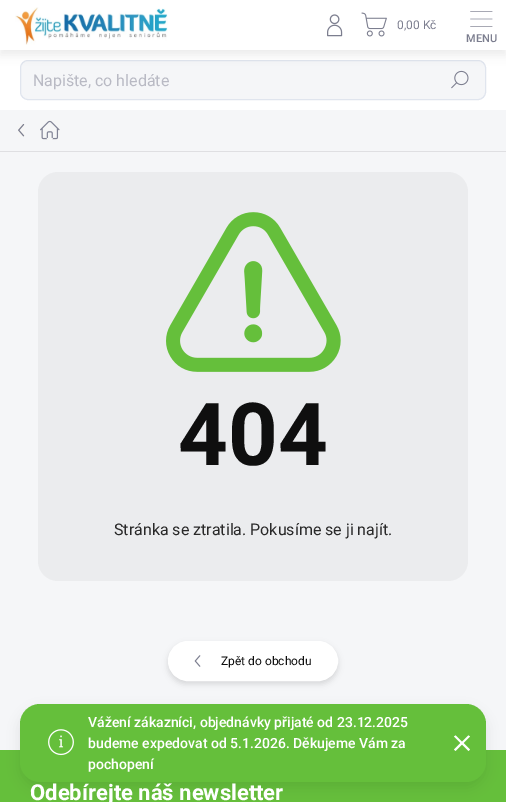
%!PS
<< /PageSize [506 802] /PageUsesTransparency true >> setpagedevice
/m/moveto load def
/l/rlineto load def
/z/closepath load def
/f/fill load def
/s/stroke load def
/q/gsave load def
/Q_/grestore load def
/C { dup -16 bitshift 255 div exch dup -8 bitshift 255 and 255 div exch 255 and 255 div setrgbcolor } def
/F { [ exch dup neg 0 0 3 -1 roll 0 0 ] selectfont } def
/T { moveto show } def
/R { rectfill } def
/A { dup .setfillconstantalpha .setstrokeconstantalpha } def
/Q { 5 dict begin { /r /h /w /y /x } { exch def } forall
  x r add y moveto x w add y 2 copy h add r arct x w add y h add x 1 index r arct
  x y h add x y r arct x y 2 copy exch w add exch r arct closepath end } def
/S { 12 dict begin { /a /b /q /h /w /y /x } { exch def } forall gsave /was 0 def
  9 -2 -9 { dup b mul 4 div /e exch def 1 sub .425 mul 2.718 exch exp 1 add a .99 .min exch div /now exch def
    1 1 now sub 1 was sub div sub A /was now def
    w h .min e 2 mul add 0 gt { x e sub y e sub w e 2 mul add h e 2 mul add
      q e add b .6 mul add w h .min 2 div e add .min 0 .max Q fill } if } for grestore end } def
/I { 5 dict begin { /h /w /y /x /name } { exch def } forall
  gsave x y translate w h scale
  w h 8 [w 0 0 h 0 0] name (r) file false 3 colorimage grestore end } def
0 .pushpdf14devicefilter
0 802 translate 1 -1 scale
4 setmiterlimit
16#F5F6F8 C
0 0 506 802 R
16#FFFFFF C
0 50 506 60 R
16#F5F6F8 C
20.5 60.5 465 39 7.5 Q q f Q_
16#E0E5EE C
s
(5.rgb) 451 70 18 19 I
16#000000 C
0 5 506 50 0 5 .07 S
16#FFFFFF C
0 0 506 50 R
(1.rgb) 15 7 153 38 I
(2.rgb) 327 14 16 23 I
(3.rgb) 361 12 26 25 I
/Roboto-Regular 12 F
16#7C7E8F C
(0,00 Kč) 397 29 T
(4.rgb) 470 11 23 16 I
/Roboto-Medium 11 F
(MENU) 466 42 T
/Roboto-Regular 16 F
16#B9BAC4 C
(Napište, co hledáte) 33 86 T
16#DFDFE2 C
0 151 506 1 R
(6.rgb) 18 124 7 13 I
(7.rgb) 40 120 20 20 I
16#EBECEE C
38 172 430 409 20 Q f
(8.rgb) 166 212 175 160 I
/Roboto-Bold 87 F
16#0F0F0F C
(404) 178 465 T
/Roboto-Regular 16 F
16#292929 C
(Stránka se ztratila. Pokusíme se ji najít.) 114 535 T
16#000000 C
168 644 170 40 20 3 .12 S
16#FFFFFF C
168.5 641.5 169 39 19.5 Q q f Q_
s
(9.rgb) 194 655 7 12 I
/Roboto-Regular 12 F
16#0F0F0F C
(Zpět do obchodu) 221 665 T
16#65BF3B C
0 750 506 52 R
16#000000 C
20 710 466 78 20 6 .08 S
16#65BF3B C
20 704 466 78 20 Q f
/Roboto-Medium 14 F
16#FFFFFF C
(Vážení zákazníci, objednávky přijaté od 23.12.2025) 88 727 T
(10.rgb) 48 729 26 27 I
(budeme expedovat od 5.1.2026. Děkujeme Vám za) 88 748 T
(pochopení) 88 769 T
468.5 735.5 m 1.5 1 l -14.5 14.5 l -1.5 -1.5 l z f
455.5 735.5 m 14.5 14 l -1.5 1.5 l -14.5 -14.5 l z f
/Roboto-Bold 22 F
(Odebírejte náš newsletter) 30 800 T
.poppdf14devicefilter showpage
